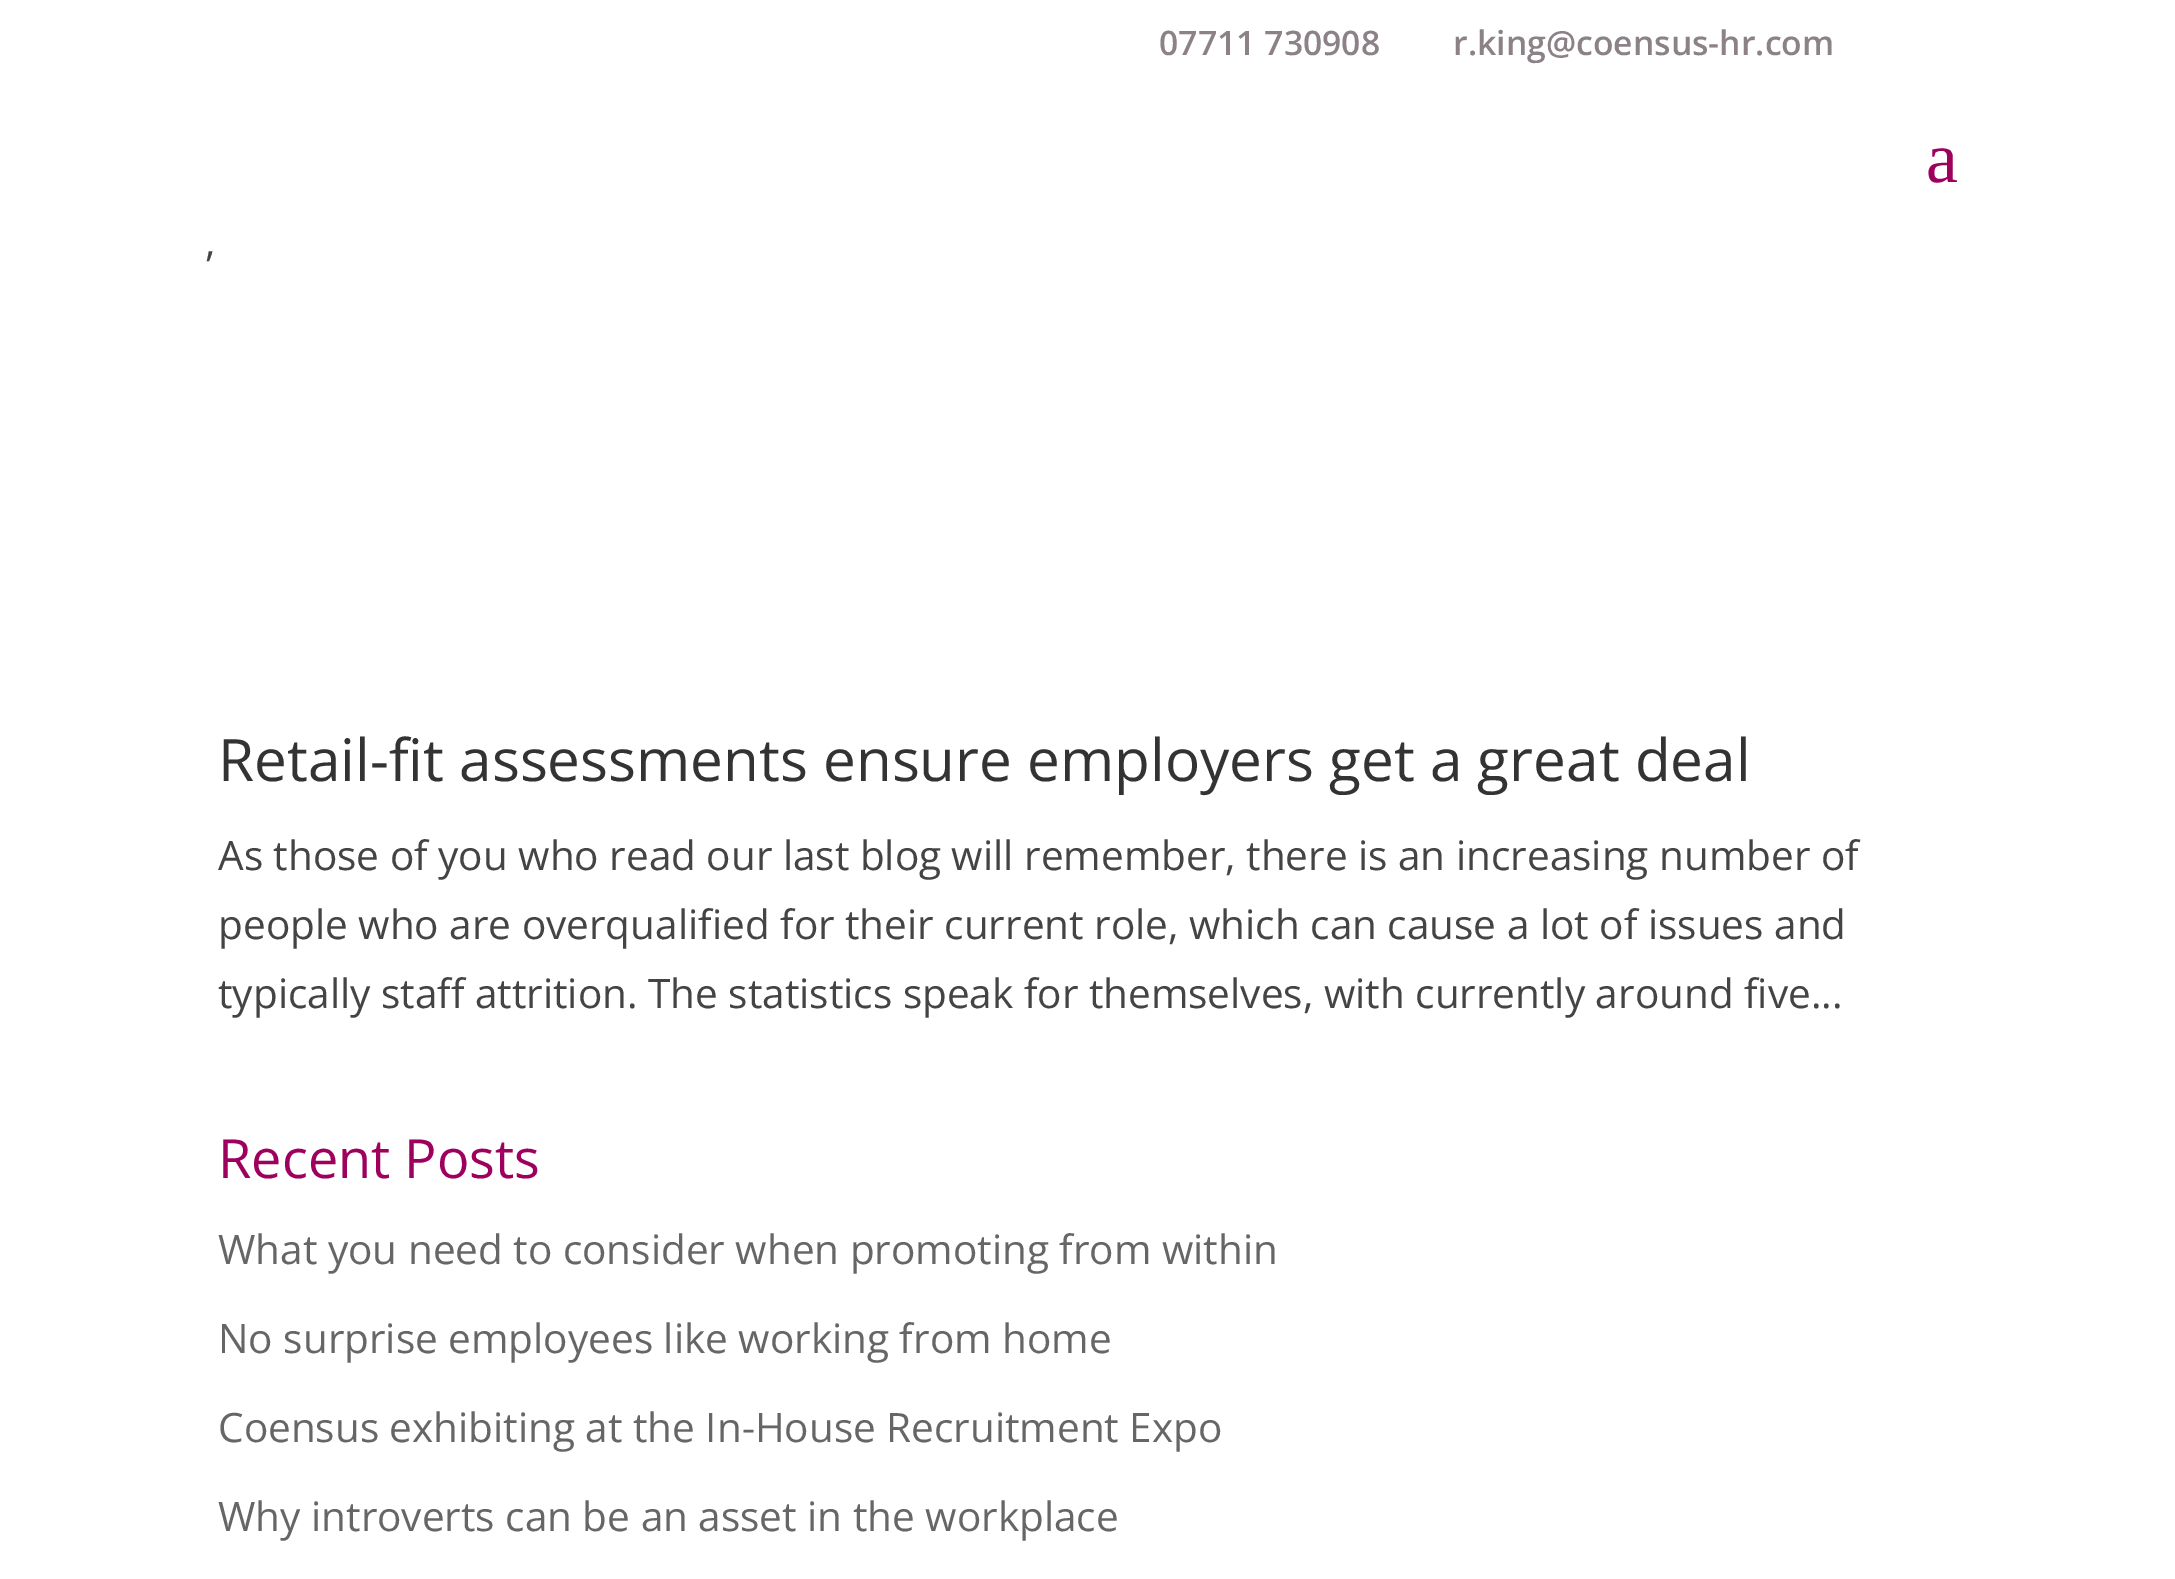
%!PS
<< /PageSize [2175 1579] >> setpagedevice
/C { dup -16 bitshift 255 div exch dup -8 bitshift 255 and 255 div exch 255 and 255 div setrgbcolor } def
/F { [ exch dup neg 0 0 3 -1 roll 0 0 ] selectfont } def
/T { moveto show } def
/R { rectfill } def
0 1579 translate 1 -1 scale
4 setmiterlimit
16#FFFFFF C
0 0 2175 1579 R
/OpenSans-Regular 40.5 F
16#444444 C
(,) 205 256 T
/OpenSans-SemiBold 33.75 F
16#8B8187 C
(07711 730908) 1159 55 T
(r.king@coensus-hr.com) 1453 55 T
/LiberationSerif-Regular 72 F
16#9E005D C
(a) 1926 182 T
/OpenSans-Regular 58.5 F
16#333333 C
(Retail-fit assessments ensure employers get a great deal) 218 781 T
/OpenSans-Regular 40.5 F
16#444444 C
(As those of you who read our last blog will remember, there is an increasing number of) 218 870 T
(people who are overqualified for their current role, which can cause a lot of issues and) 218 939 T
(typically staff attrition. The statistics speak for themselves, with currently around five...) 218 1008 T
/OpenSans-Regular 54 F
16#9E005D C
(Recent Posts) 218 1178 T
/OpenSans-Regular 40.5 F
16#666666 C
(What you need to consider when promoting from within) 218 1264 T
(No surprise employees like working from home) 218 1353 T
(Coensus exhibiting at the In-House Recruitment Expo) 218 1442 T
(Why introverts can be an asset in the workplace) 218 1531 T
showpage
